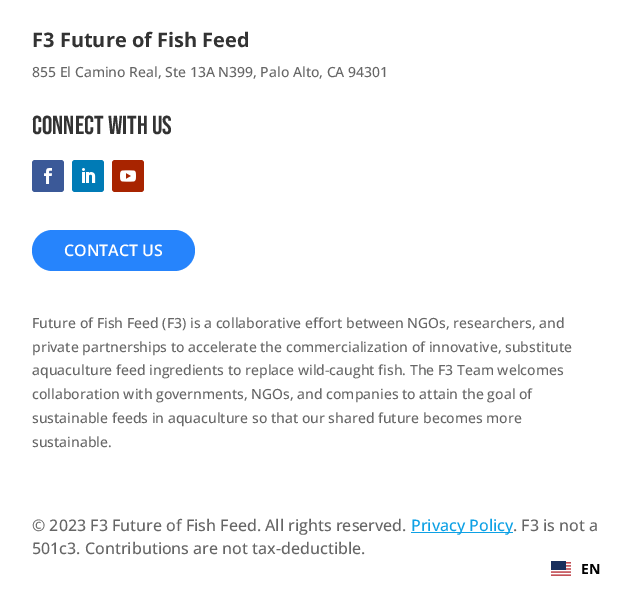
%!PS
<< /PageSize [635 589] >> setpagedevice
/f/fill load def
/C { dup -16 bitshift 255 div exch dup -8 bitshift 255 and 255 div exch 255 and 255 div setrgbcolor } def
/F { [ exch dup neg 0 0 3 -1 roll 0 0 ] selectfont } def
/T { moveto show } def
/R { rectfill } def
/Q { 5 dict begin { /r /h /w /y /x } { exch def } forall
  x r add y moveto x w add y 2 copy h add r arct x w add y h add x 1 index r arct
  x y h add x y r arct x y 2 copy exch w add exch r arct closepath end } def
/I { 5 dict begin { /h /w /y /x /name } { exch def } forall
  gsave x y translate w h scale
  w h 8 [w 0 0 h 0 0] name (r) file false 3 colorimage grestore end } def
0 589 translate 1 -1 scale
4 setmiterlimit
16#FFFFFF C
0 0 635 589 R
/OpenSans-Bold 20 F
16#333333 C
(F3 Future of Fish Feed) 32 47 T
/OpenSans-Medium 14 F
16#666666 C
(855 El Camino Real, Ste 13A N399, Palo Alto, CA 94301) 32 77 T
/BebasNeue-Regular 26 F
16#333333 C
(Connect With Us) 32 134 T
16#3B5998 C
32 160 32 32 3 Q f
(1.rgb) 44 168 8 16 I
16#007BB6 C
72 160 32 32 3 Q f
(2.rgb) 82 168 14 15 I
16#A82400 C
112 160 32 32 3 Q f
(3.rgb) 120 170 16 12 I
16#2684FC C
32 230 163 41 20.5 Q f
/OpenSans-SemiBold 16 F
16#FFFFFF C
(CONTACT US) 64 256 T
/OpenSans-Medium 14 F
16#666666 C
(Future of Fish Feed \(F3\) is a collaborative effort between NGOs, researchers, and) 32 328 T
(private partnerships to accelerate the commercialization of innovative, substitute) 32 352 T
(aquaculture feed ingredients to replace wild-caught fish. The F3 Team welcomes) 32 375 T
(collaboration with governments, NGOs, and companies to attain the goal of) 32 399 T
(sustainable feeds in aquaculture so that our shared future becomes more) 32 423 T
(sustainable.) 32 447 T
/OpenSans-Medium 16 F
(© 2023 F3 Future of Fish Feed. All rights reserved.) 32 531 T
16#0DA1E5 C
411 532 102 1 R
(Privacy Policy) 411 531 T
16#666666 C
(. F3 is not a) 513 531 T
(501c3. Contributions are not tax-deductible.) 32 554 T
(4.rgb) 551 561 20 15 I
/NotoSans-Bold 14 F
16#000000 C
(EN) 581 574 T
showpage
